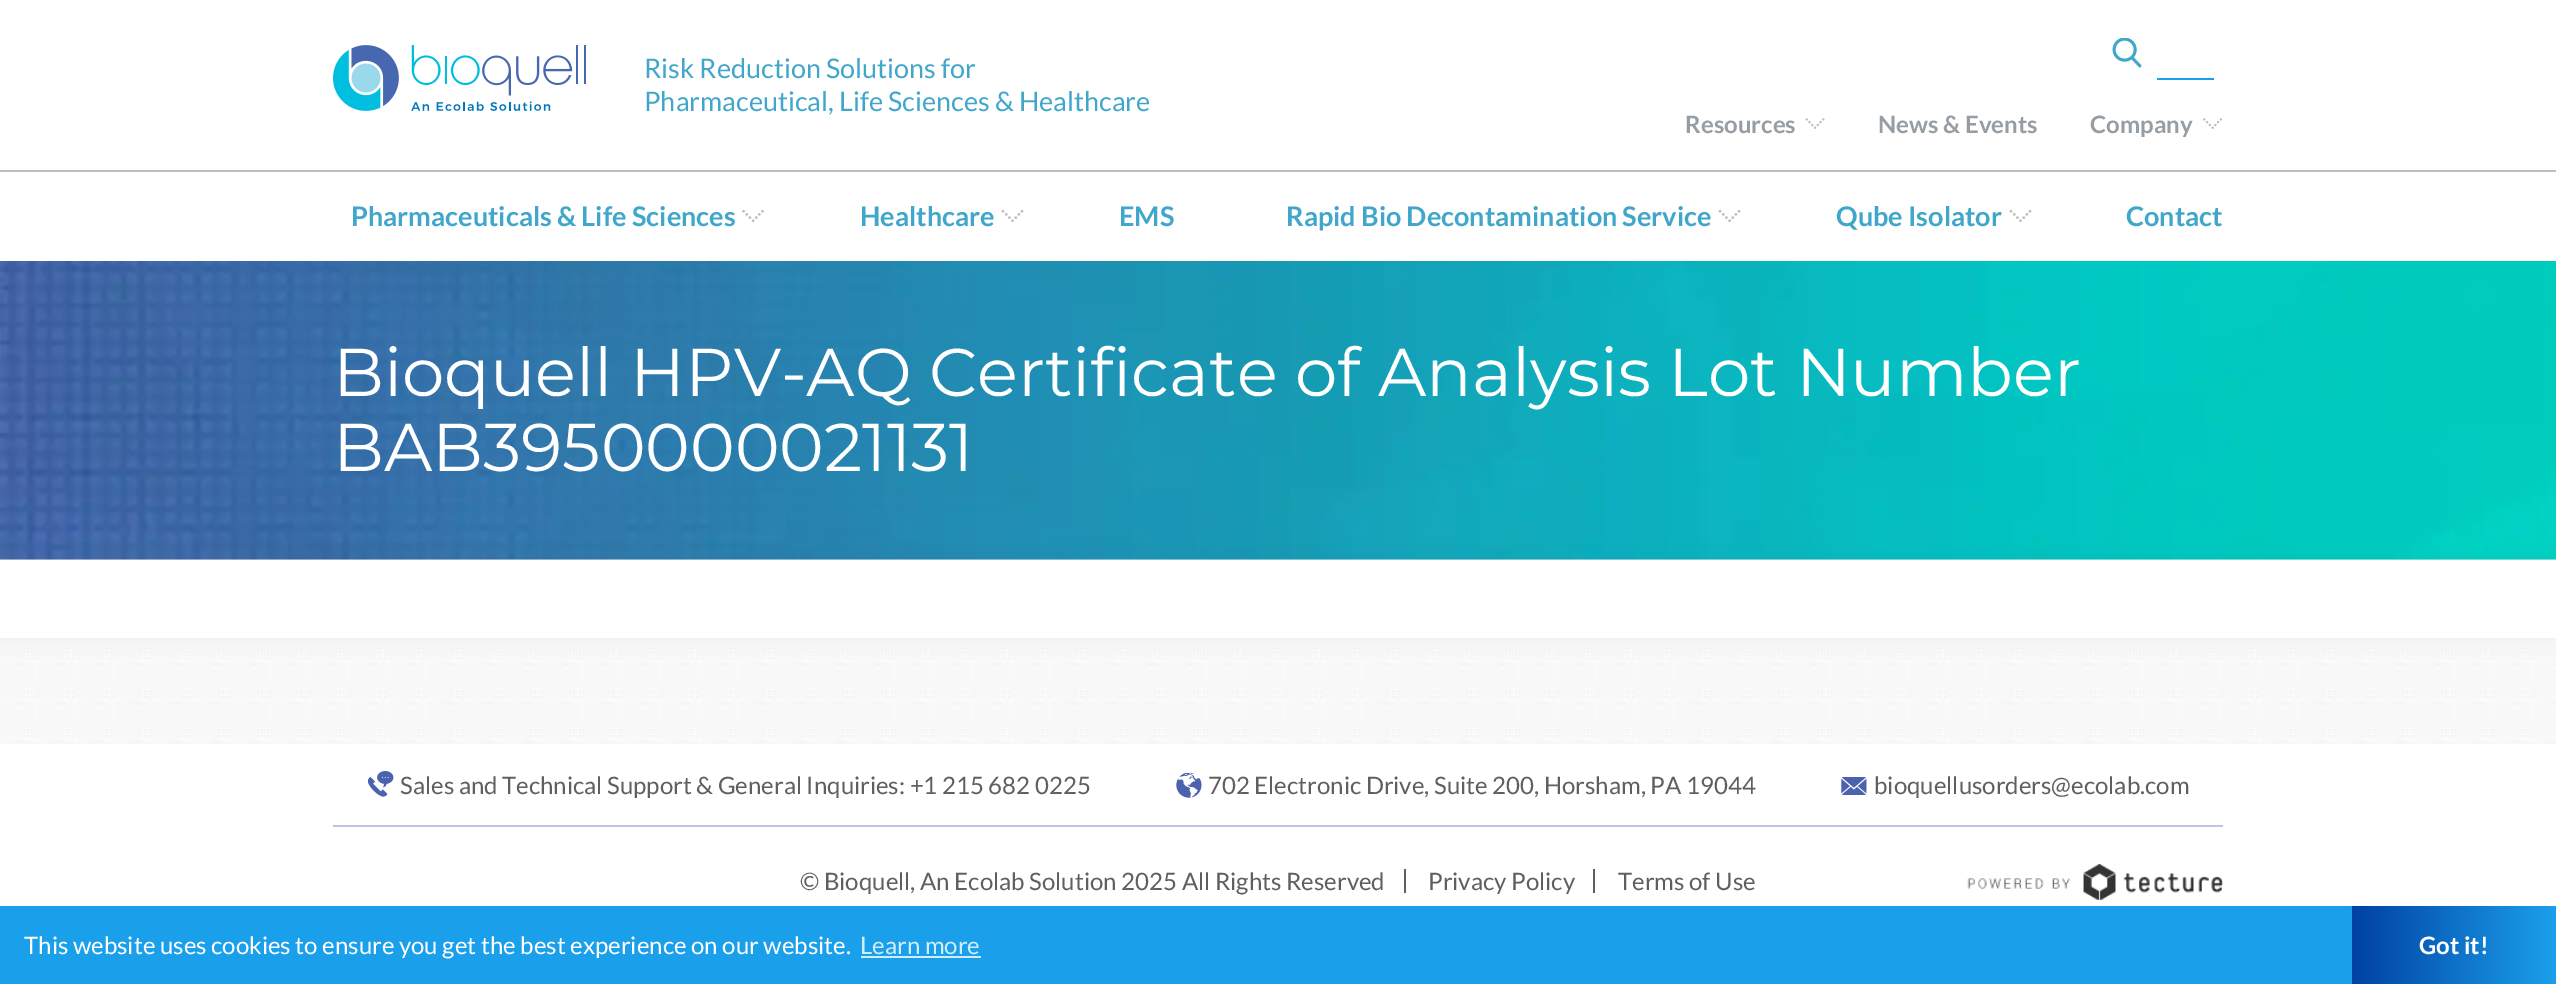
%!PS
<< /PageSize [2556 984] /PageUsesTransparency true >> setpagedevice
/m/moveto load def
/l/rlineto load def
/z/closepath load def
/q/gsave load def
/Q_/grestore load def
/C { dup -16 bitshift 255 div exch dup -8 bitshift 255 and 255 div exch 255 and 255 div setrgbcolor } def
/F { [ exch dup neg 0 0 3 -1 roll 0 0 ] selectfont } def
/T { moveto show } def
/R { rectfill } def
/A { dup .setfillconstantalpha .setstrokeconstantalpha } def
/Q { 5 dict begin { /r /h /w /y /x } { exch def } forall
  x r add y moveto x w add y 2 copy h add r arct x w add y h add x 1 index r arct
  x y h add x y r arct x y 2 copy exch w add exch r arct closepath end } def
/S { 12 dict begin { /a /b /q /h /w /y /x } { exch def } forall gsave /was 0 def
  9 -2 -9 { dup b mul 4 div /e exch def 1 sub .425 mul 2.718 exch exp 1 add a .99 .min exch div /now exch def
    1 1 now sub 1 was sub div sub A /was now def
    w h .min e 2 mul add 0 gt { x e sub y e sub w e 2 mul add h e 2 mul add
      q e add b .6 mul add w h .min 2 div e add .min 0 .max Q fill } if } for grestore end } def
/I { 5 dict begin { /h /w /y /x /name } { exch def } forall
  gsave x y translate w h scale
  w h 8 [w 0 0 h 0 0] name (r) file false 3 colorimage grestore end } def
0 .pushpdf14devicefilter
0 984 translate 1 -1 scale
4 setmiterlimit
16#FFFFFF C
0 0 2556 984 R
(1.rgb) 0 559 2556 185 I
(2.rgb) 333 45 253 66 I
/Lato-Regular 27 F
16#40A6CA C
(Risk Reduction Solutions for) 644 78 T
(Pharmaceutical, Life Sciences & Healthcare) 644 111 T
(3.rgb) 2112 38 30 30 I
16#1A9FEA C
2157 78 57 2 R
(4.rgb) 1805 118 20 11 I
/Lato-Bold 24 F
16#979EA3 C
(Resources) 1685 133 T
(News & Events) 1878 133 T
(5.rgb) 2203 118 19 11 I
(Company) 2090 133 T
16#BEBEBE C
0 170 2556 2 R
(6.rgb) 742 209 22 14 I
/Lato-Bold 27 F
16#40A6CA C
(Pharmaceuticals & Life Sciences) 351 226 T
(7.rgb) 1001 209 23 14 I
(Healthcare) 860 226 T
(EMS) 1119 226 T
(7.rgb) 1718 209 23 14 I
(Rapid Bio Decontamination Service) 1286 226 T
(7.rgb) 2009 209 23 14 I
(Qube Isolator) 1836 226 T
(Contact) 2126 226 T
(8.rgb) 0 261 2556 299 I
/Montserrat-Regular 67.5 F
16#FFFFFF C
(Bioquell HPV-AQ Certificate of Analysis Lot Number) 333 396 T
(BAB3950000021131) 333 471 T
16#000000 C
0 560 2556 78 0 10 .05 S
16#FFFFFF C
0 560 2556 78 R
(9.rgb) 368 771 26 26 I
/Lato-Regular 24 F
16#5F5F5F C
(Sales and Technical Support & General Inquiries: +1 215 682 0225) 400 794 T
(10.rgb) 1176 773 26 25 I
(702 Electronic Drive, Suite 200, Horsham, PA 19044) 1208 794 T
(11.rgb) 1841 777 26 18 I
(bioquellusorders@ecolab.com) 1874 794 T
16#BBC4E0 C
333 825 1890 2 R
16#5F5F5F C
1404 869 2 24 R
(© Bioquell, An Ecolab Solution 2025 All Rights Reserved) 800 890 T
1593 869 2 24 R
(Privacy Policy) 1428 890 T
(Terms of Use) 1618 890 T
(12.rgb) 1967 864 256 36 I
16#1A9FEA C
0 906 2349 78 R
16#FFFFFF C
(This website uses cookies to ensure you get the best experience on our website.) 24 954 T
16#D1ECFB C
(Learn more) 860 954 T
861 956 120 2 R
q 2349 906 m 3 0 l 0 78 l -3 0 l z clip newpath
<< /ShadingType 2 /ColorSpace /DeviceRGB /Coords [2352 945 2148 945] /Extend [true true] /Function << /FunctionType 2 /Domain [0 1] /C0 [.106 .627 .922] /C1 [0 .255 .643] /N 1 >> >> shfill Q_
q 2352 906 m 204 0 l 0 78 l -204 0 l z clip newpath
<< /ShadingType 2 /ColorSpace /DeviceRGB /Coords [2556 945 2352 945] /Extend [true true] /Function << /FunctionType 2 /Domain [0 1] /C0 [.106 .627 .922] /C1 [0 .255 .643] /N 1 >> >> shfill Q_
/Lato-Bold 24 F
16#FFFFFF C
(Got it!) 2419 954 T
.poppdf14devicefilter showpage
